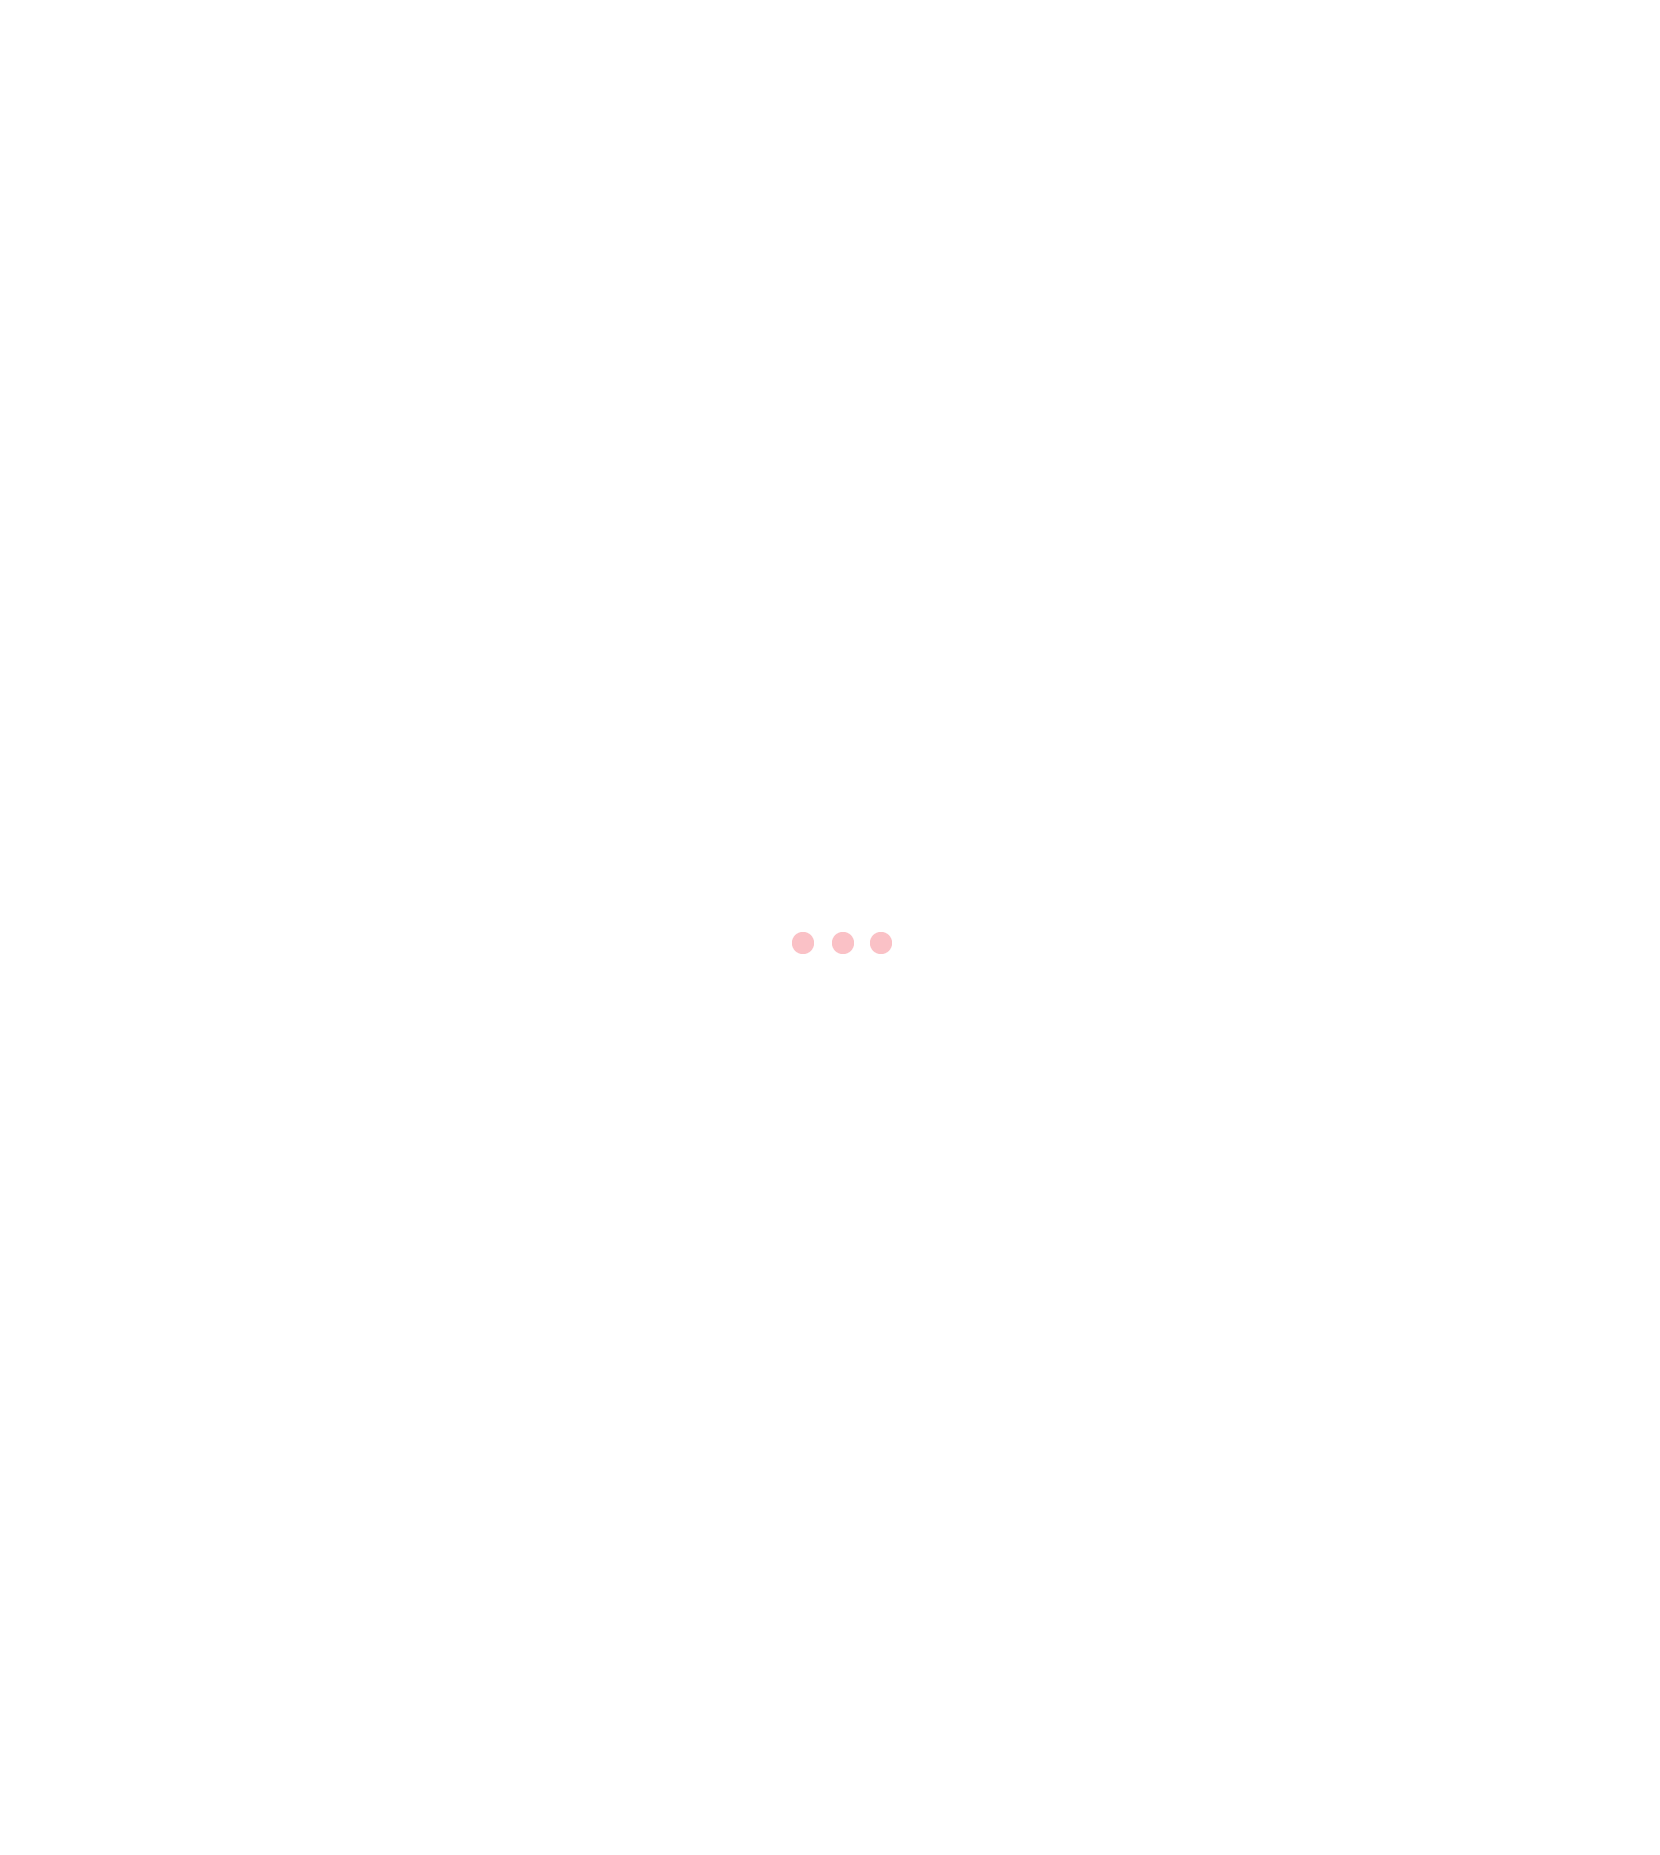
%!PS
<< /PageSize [1660 1855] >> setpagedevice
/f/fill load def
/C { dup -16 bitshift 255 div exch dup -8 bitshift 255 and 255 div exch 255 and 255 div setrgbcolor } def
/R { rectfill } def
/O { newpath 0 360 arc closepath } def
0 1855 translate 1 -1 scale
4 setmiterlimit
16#FFFFFF C
0 0 1660 1855 R
16#FAC1C6 C
803 943 11 O f
843 943 11 O f
881 943 11 O f
showpage
